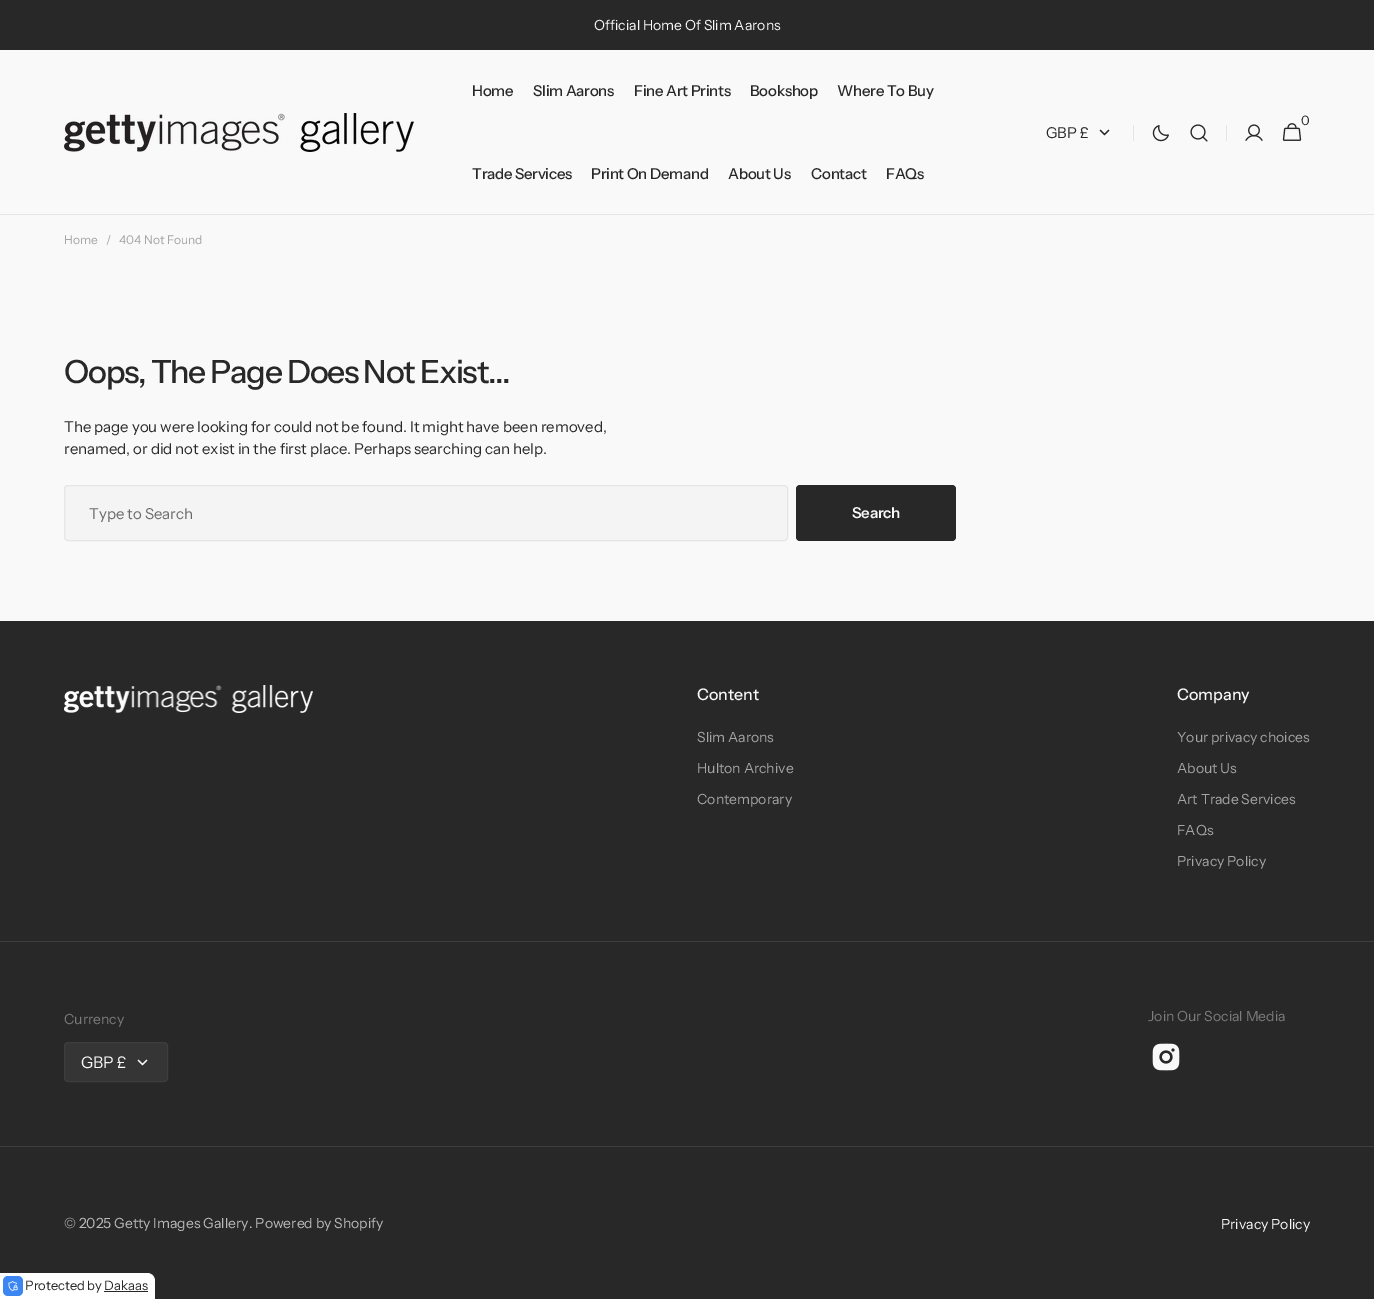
%!PS
<< /PageSize [1374 1299] >> setpagedevice
/m/moveto load def
/l/rlineto load def
/c/rcurveto load def
/z/closepath load def
/f/fill load def
/s/stroke load def
/q/gsave load def
/Q_/grestore load def
/w/setlinewidth load def
/C { dup -16 bitshift 255 div exch dup -8 bitshift 255 and 255 div exch 255 and 255 div setrgbcolor } def
/F { [ exch dup neg 0 0 3 -1 roll 0 0 ] selectfont } def
/T { moveto show } def
/R { rectfill } def
/Q { 5 dict begin { /r /h /w /y /x } { exch def } forall
  x r add y moveto x w add y 2 copy h add r arct x w add y h add x 1 index r arct
  x y h add x y r arct x y 2 copy exch w add exch r arct closepath end } def
/I { 5 dict begin { /h /w /y /x /name } { exch def } forall
  gsave x y translate w h scale
  w h 8 [w 0 0 h 0 0] name (r) file false 3 colorimage grestore end } def
0 1299 translate 1 -1 scale
4 setmiterlimit
16#F9F9F9 C
0 0 1374 1299 R
16#282828 C
0 0 1374 50 R
/InstrumentSans-Regular 14 F
16#F9F9F9 C
(Official Home Of Slim Aarons) 594 30 T
(1.rgb) 64 113 350 39 I
/InstrumentSans-Medium 15 F
16#282828 C
472 96 m -.25 0 (Home) ashow
533 96 m -.25 0 (Slim Aarons) ashow
634 96 m -.25 0 (Fine Art Prints) ashow
750 96 m -.25 0 (Bookshop) ashow
837 96 m -.25 0 (Where To Buy) ashow
472 179 m -.25 0 (Trade Services) ashow
591 179 m -.25 0 (Print On Demand) ashow
728 179 m -.25 0 (About Us) ashow
811 179 m -.25 0 (Contact) ashow
886 179 m -.25 0 (FAQs) ashow
(2.rgb) 1282 123 20 18 I
/InstrumentSans-Regular 13 F
(0) 1301 125 T
(3.rgb) 1245 124 18 17 I
/InstrumentSans-Regular 15 F
(GBP £) 1046 138 T
1.3 w
1 setlinecap
1 setlinejoin
1108.5 130.5 m -4 4 l -4 -4 l s
16#E5E5E5 C
1133 125 1 16 R
(4.rgb) 1152 125 17 17 I
(5.rgb) 1190 124 18 18 I
1226 125 1 16 R
0 214 1374 1 R
/InstrumentSans-Regular 12 F
16#A5A5A5 C
(Home) 64 244 T
(/) 106 244 T
(404 Not Found) 119 244 T
/InstrumentSans-Medium 32 F
16#282828 C
64 383 m -1.25 0 (Oops, The Page Does Not Exist...) ashow
/InstrumentSans-Regular 15 F
(The page you were looking for could not be found. It might have been removed,) 64 432 T
(renamed, or did not exist in the first place. Perhaps searching can help.) 64 454 T
16#F4F4F4 C
64.5 485.5 723 55 3.5 Q q f Q_
16#E5E5E5 C
1 w
0 setlinecap
0 setlinejoin
s
16#696969 C
(Type to Search) 89 519 T
16#282828 C
796 485 160 56 4 Q f
/InstrumentSans-SemiBold 15 F
16#F9F9F9 C
852 518 m -.25 0 (Search) ashow
16#282828 C
0 621 1374 678 R
(6.rgb) 64 685 249 28 I
/InstrumentSans-Medium 16 F
16#F9F9F9 C
(Content) 697 700 T
/InstrumentSans-Regular 14 F
16#A5A5A5 C
(Slim Aarons) 697 742 T
(Hulton Archive) 697 773 T
(Contemporary) 697 804 T
/InstrumentSans-Medium 16 F
16#F9F9F9 C
(Company) 1177 700 T
/InstrumentSans-Regular 14 F
16#A5A5A5 C
(Your privacy choices) 1177 742 T
(About Us) 1177 773 T
(Art Trade Services) 1177 804 T
(FAQs) 1177 835 T
(Privacy Policy) 1177 866 T
16#3E3E3E C
0 941 1374 1 R
0 1146 1374 1 R
16#7C7C7C C
(Currency) 64 1024 T
16#353535 C
64.5 1042.5 103 39 3.5 Q q f Q_
16#3E3E3E C
s
/InstrumentSans-Regular 16 F
16#F9F9F9 C
(GBP £) 81 1068 T
1.3 w
1 setlinecap
1 setlinejoin
146.5 1060.5 m -4 4 l -4 -4 l s
/InstrumentSans-Regular 14 F
16#7C7C7C C
(Join Our Social Media) 1148 1021 T
(7.rgb) 1152 1043 28 28 I
16#BABABA C
(© 2025 Getty Images Gallery) 64 1228 T
(. Powered by Shopify) 249 1228 T
16#F9F9F9 C
(Privacy Policy) 1221 1229 T
16#FFFFFF C
0 1273 m 147 0 l 4.5 0 8 3.5 8 8 c 0 18 l -155 0 l z f
16#3B86F2 C
3 1276 20 20 5 Q f
(8.rgb) 8 1281 10 10 I
/InstrumentSans-Regular 13 F
16#282828 C
(Protected) 25 1290 T
(by) 87 1290 T
(Dakaas) 104 1290 T
104 1291 44 1 R
showpage
